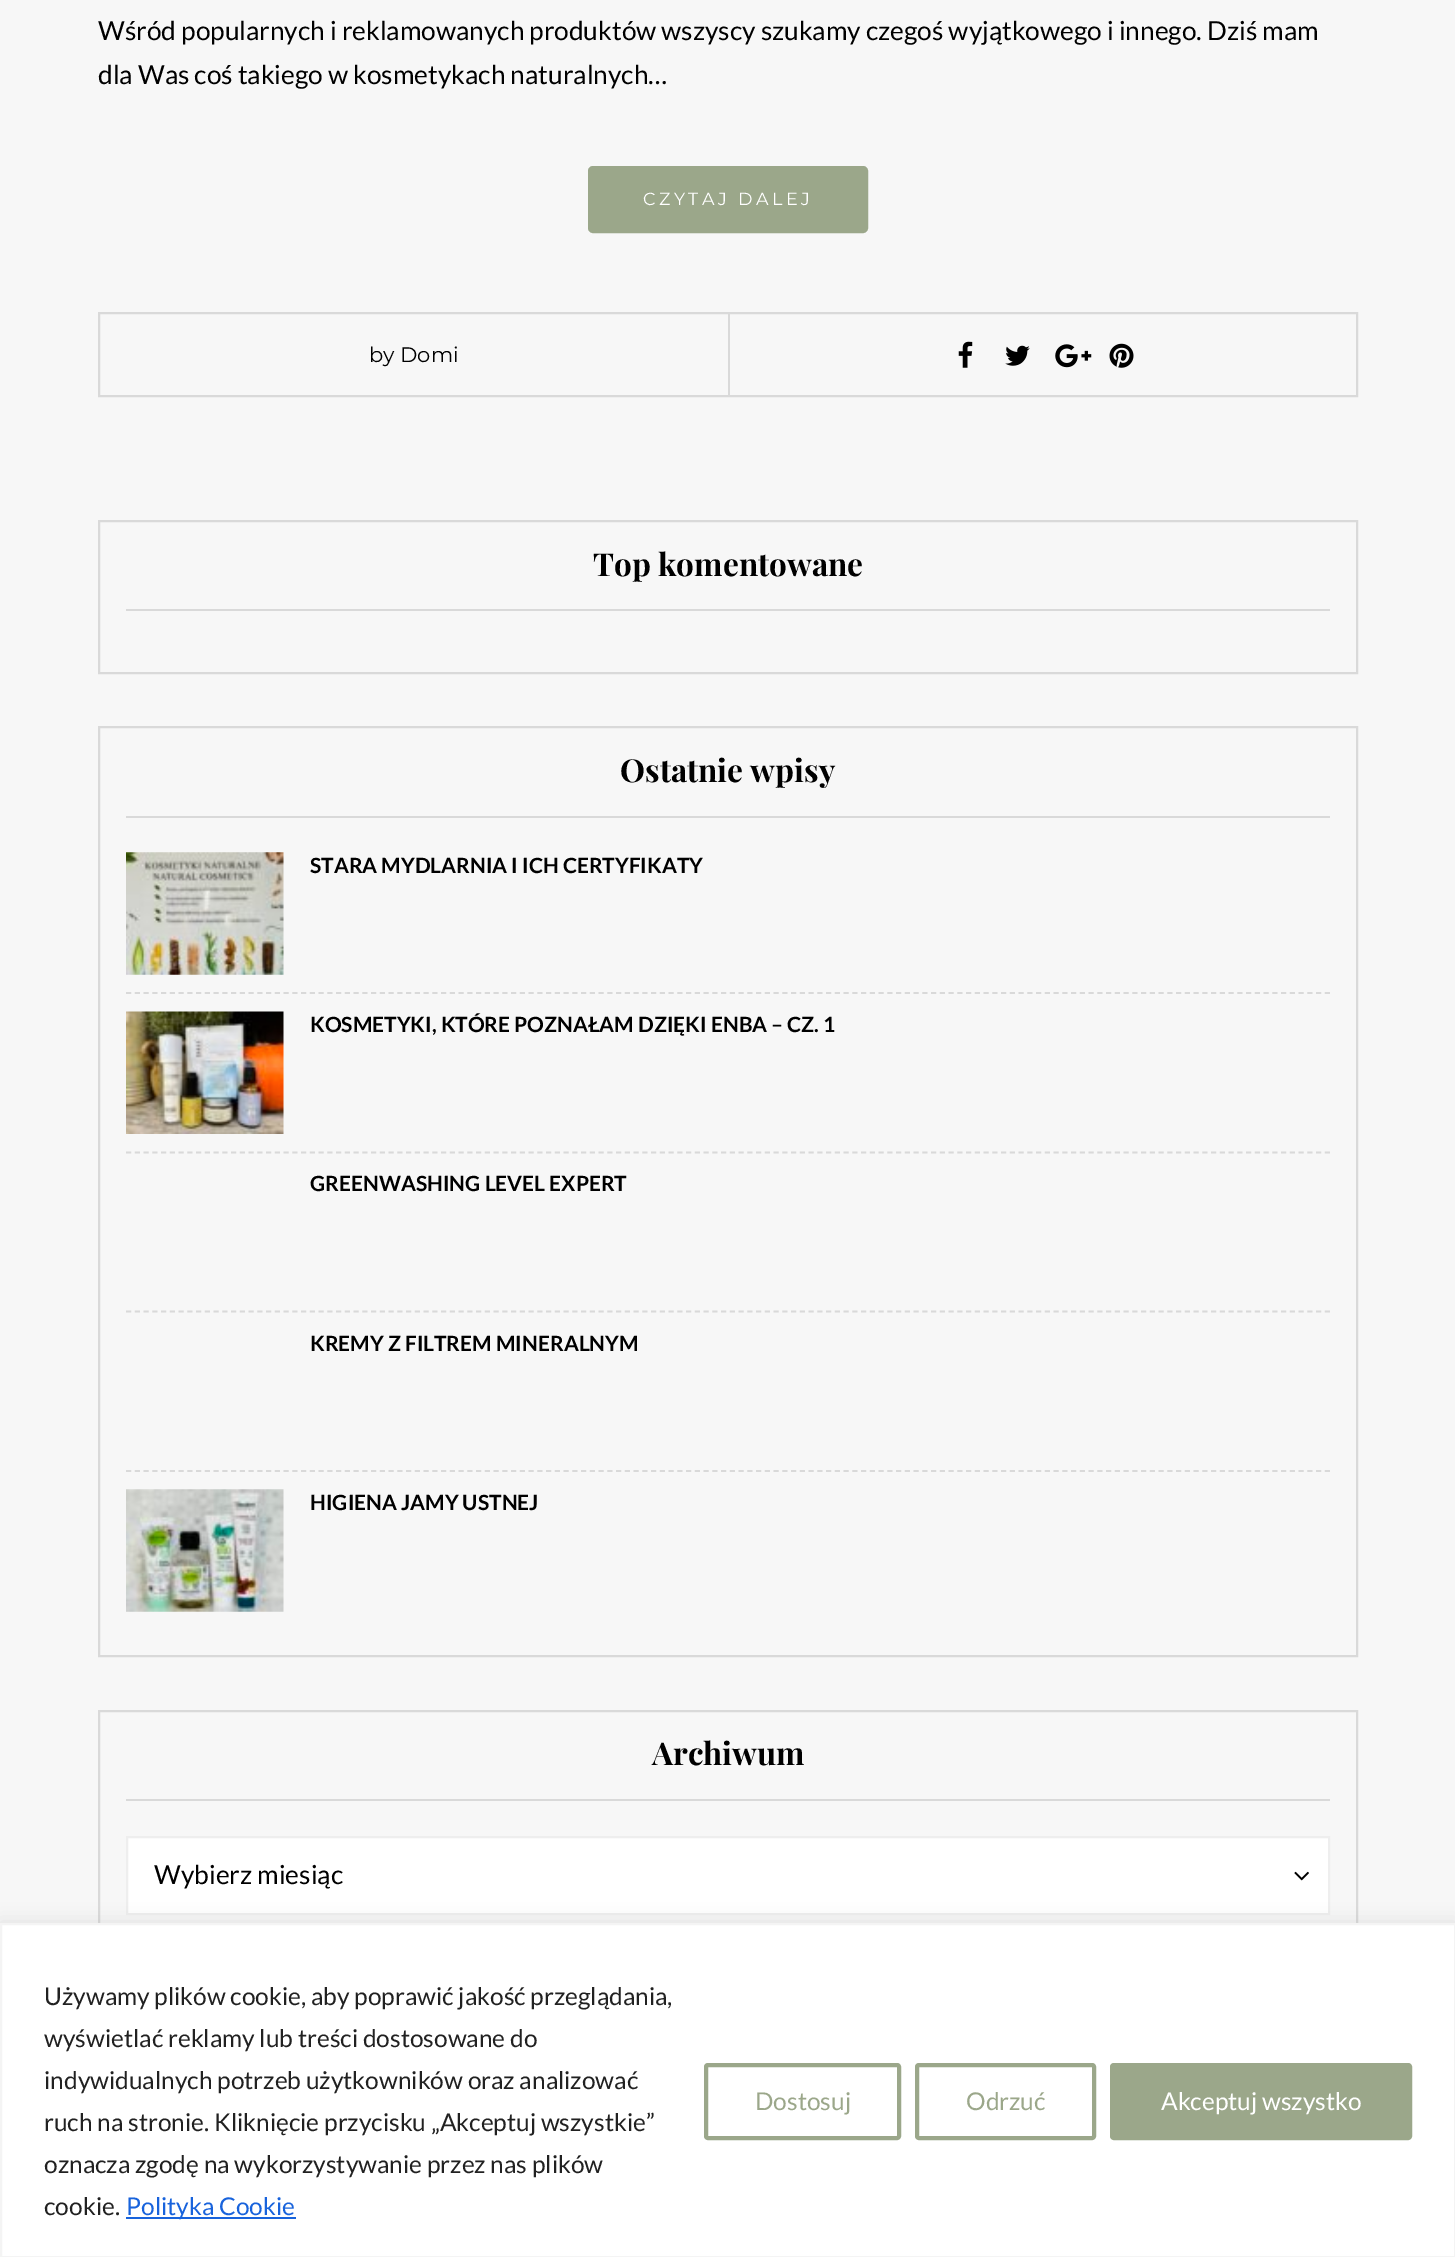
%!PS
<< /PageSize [1455 2257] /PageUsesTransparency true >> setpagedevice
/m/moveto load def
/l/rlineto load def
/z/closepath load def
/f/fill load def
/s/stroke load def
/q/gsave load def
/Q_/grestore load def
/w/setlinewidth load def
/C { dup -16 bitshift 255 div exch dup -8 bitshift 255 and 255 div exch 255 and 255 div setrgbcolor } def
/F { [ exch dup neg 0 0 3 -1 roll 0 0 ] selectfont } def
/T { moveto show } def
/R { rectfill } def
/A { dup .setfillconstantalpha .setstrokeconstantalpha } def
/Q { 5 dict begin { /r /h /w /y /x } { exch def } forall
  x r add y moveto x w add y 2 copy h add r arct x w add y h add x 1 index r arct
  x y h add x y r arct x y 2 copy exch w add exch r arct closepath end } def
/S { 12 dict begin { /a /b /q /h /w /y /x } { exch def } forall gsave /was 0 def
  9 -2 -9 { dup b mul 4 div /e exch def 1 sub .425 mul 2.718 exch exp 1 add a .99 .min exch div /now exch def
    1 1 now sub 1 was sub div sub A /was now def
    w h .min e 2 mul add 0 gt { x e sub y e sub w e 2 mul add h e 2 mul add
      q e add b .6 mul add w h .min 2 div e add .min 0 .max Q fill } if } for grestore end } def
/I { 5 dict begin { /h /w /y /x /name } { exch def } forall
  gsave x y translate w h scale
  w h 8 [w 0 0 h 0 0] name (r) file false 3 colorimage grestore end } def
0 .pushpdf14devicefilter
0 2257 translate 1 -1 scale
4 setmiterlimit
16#F7F7F7 C
0 0 1455 2257 R
/Lato-Regular 26.25 F
16#000000 C
(Wśród popularnych i reklamowanych produktów wszyscy szukamy czegoś wyjątkowego i innego. Dziś mam) 98 40 T
(dla Was coś takiego w kosmetykach naturalnych…) 98 84 T
16#9BA78A C
589 167 278 65 4 Q q f Q_
2 w
s
/Montserrat-Thin 17.5 F
16#FFFFFF C
643 205 m 3.5 0 (CZYTAJ DALEJ) ashow
16#D9D9D9 C
99 313 1258 83 rectstroke
/Montserrat-Thin 21 F
16#000000 C
(by Domi) 369 362 T
16#D9D9D9 C
728 313 2 83 R
(1.rgb) 958 341 15 27 I
(2.rgb) 1005 345 25 21 I
(3.rgb) 1055 344 37 24 I
(4.rgb) 1109 343 25 25 I
99 521 1258 152 rectstroke
126 609 1204 2 R
/PlayfairDisplay-Bold 31.5 F
16#000000 C
(Top komentowane) 593 576 T
16#D9D9D9 C
99 727 1258 929 rectstroke
126 816 1204 2 R
16#000000 C
(Ostatnie wpisy) 620 782 T
16#D9D9D9 C
1.8 w
[5.25 3.5] 0 setdash
126 993 m 1204 0 l s
(5.rgb) 126 852 158 123 I
/Lato-Bold 21 F
16#000000 C
(STARA MYDLARNIA I ICH CERTYFIKATY) 310 873 T
16#D9D9D9 C
126 1152.5 m 1204 0 l s
(6.rgb) 126 1011 158 123 I
16#000000 C
(KOSMETYKI, KTÓRE POZNAŁAM DZIĘKI ENBA – CZ. 1) 310 1032 T
16#D9D9D9 C
126 1311.5 m 1204 0 l s
16#000000 C
(GREENWASHING LEVEL EXPERT) 310 1191 T
16#D9D9D9 C
126 1471 m 1204 0 l s
16#000000 C
(KREMY Z FILTREM MINERALNYM) 310 1351 T
(7.rgb) 126 1489 158 123 I
(HIGIENA JAMY USTNEJ) 310 1510 T
16#D9D9D9 C
2 w
[] 0 setdash
99 1711 1258 248 rectstroke
126 1799 1204 2 R
/PlayfairDisplay-Bold 31.5 F
16#000000 C
(Archiwum) 652 1765 T
16#FFFFFF C
127 1837 m 1202 0 l 0 77 l -1202 0 l z q f Q_
16#EEEEEE C
s
/Lato-Regular 26.25 F
16#000000 C
(Wybierz miesiąc) 154 1884 T
(8.rgb) 1294 1871 15 10 I
16#ACABAB C
0 1922 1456 334 0 9 .3 S
16#FFFFFF C
1 1924 m 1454 0 l 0 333 l -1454 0 l z q f Q_
16#F4F4F4 C
s
/Lato-Regular 24.5 F
16#212121 C
(Używamy plików cookie, aby poprawić jakość przeglądania,) 44 2005 T
(wyświetlać reklamy lub treści dostosowane do) 44 2047 T
(indywidualnych potrzeb użytkowników oraz analizować) 44 2089 T
(ruch na stronie. Kliknięcie przycisku „Akceptuj wszystkie”) 44 2131 T
(oznacza zgodę na wykorzystywanie przez nas plików) 44 2173 T
(cookie.) 44 2215 T
16#1863DC C
126 2217 170 2 R
(Polityka Cookie) 126 2215 T
16#9BA78A C
4 w
706 2065 193 73 2 Q s
(Dostosuj) 755 2110 T
917 2065 177 73 2 Q s
(Odrzuć) 966 2110 T
1112 2065 298 73 2 Q q f Q_
s
16#FFFFFF C
(Akceptuj wszystko) 1161 2110 T
.poppdf14devicefilter showpage
